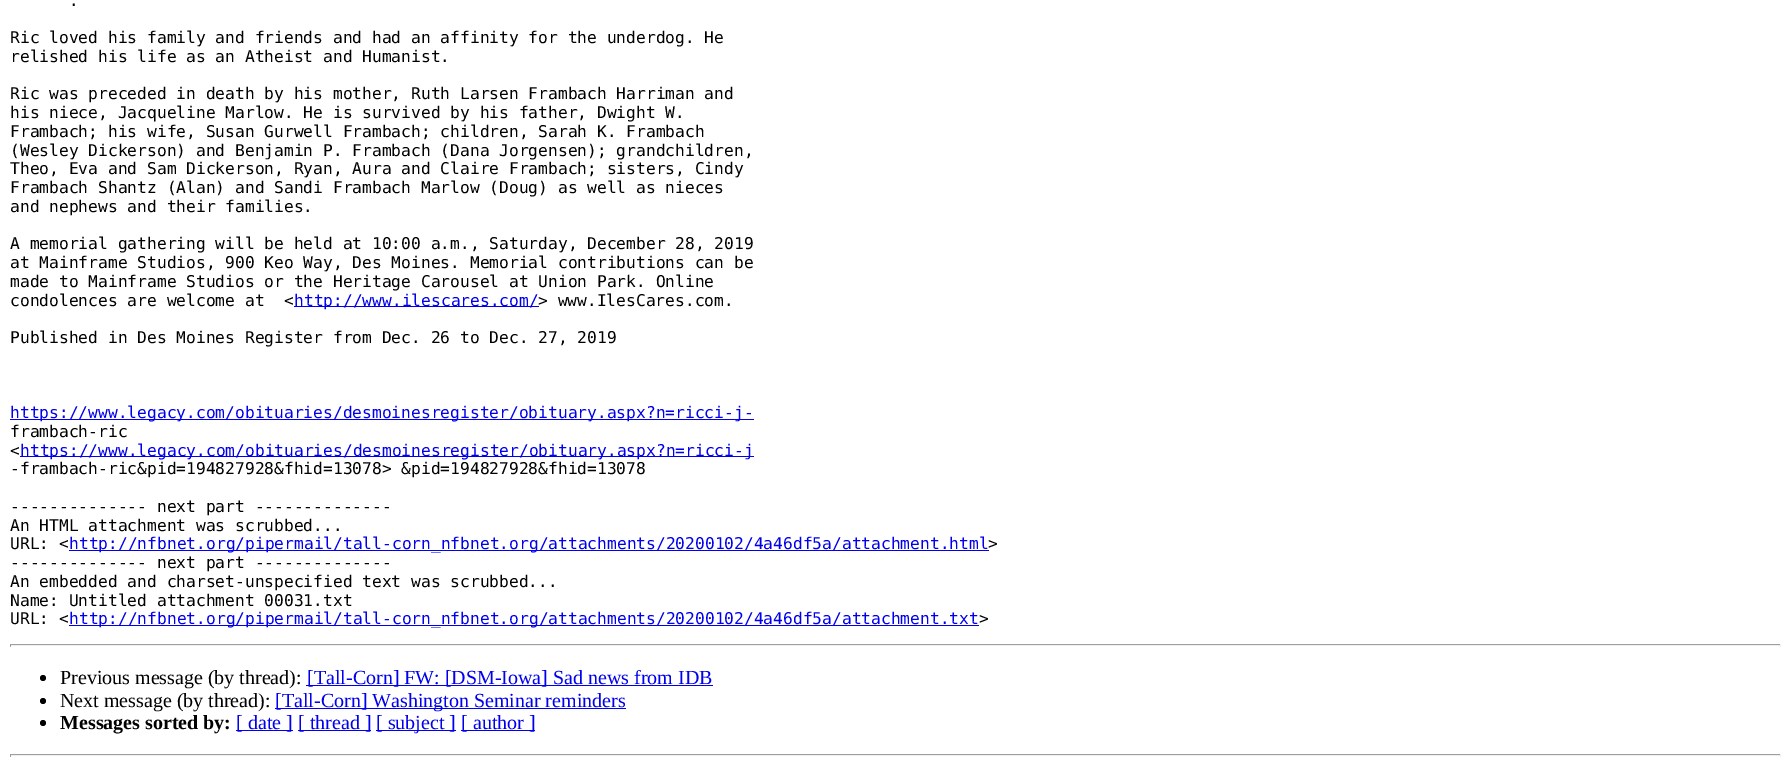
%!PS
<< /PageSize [1791 761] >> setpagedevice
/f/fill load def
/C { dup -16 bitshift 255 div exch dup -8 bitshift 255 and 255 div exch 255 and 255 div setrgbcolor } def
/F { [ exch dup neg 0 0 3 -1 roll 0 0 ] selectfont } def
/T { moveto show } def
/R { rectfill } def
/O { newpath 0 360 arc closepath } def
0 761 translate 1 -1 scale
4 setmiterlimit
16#FFFFFF C
0 0 1791 761 R
/DejaVuSansMono-Regular 16.25 F
16#000000 C
(.) 69 6 T
(Ric loved his family and friends and had an affinity for the underdog. He) 10 43 T
(relished his life as an Atheist and Humanist.) 10 62 T
(Ric was preceded in death by his mother, Ruth Larsen Frambach Harriman and) 10 99 T
(his niece, Jacqueline Marlow. He is survived by his father, Dwight W.) 10 118 T
(Frambach; his wife, Susan Gurwell Frambach; children, Sarah K. Frambach) 10 137 T
(\(Wesley Dickerson\) and Benjamin P. Frambach \(Dana Jorgensen\); grandchildren,) 10 156 T
(Theo, Eva and Sam Dickerson, Ryan, Aura and Claire Frambach; sisters, Cindy) 10 174 T
(Frambach Shantz \(Alan\) and Sandi Frambach Marlow \(Doug\) as well as nieces) 10 193 T
(and nephews and their families.) 10 212 T
(A memorial gathering will be held at 10:00 a.m., Saturday, December 28, 2019) 10 249 T
(at Mainframe Studios, 900 Keo Way, Des Moines. Memorial contributions can be) 10 268 T
(made to Mainframe Studios or the Heritage Carousel at Union Park. Online) 10 287 T
(condolences are welcome at  <) 10 306 T
16#0000EE C
294 306 245 1 R
(http://www.ilescares.com/) 294 306 T
16#000000 C
(> www.IlesCares.com.) 538 306 T
(Published in Des Moines Register from Dec. 26 to Dec. 27, 2019) 10 343 T
16#0000EE C
10 419 744 1 R
(https://www.legacy.com/obituaries/desmoinesregister/obituary.aspx?n=ricci-j-) 10 418 T
16#000000 C
(frambach-ric) 10 437 T
(<) 10 456 T
16#0000EE C
20 456 734 1 R
(https://www.legacy.com/obituaries/desmoinesregister/obituary.aspx?n=ricci-j) 20 456 T
16#000000 C
(-frambach-ric&pid=194827928&fhid=13078> &pid=194827928&fhid=13078) 10 474 T
(-------------- next part --------------) 10 512 T
(An HTML attachment was scrubbed...) 10 531 T
(URL: <) 10 549 T
16#0000EE C
69 550 920 1 R
(http://nfbnet.org/pipermail/tall-corn_nfbnet.org/attachments/20200102/4a46df5a/attachment.html) 69 549 T
16#000000 C
(>) 988 549 T
(-------------- next part --------------) 10 568 T
(An embedded and charset-unspecified text was scrubbed...) 10 587 T
(Name: Untitled attachment 00031.txt) 10 606 T
(URL: <) 10 624 T
16#0000EE C
69 625 910 1 R
(http://nfbnet.org/pipermail/tall-corn_nfbnet.org/attachments/20200102/4a46df5a/attachment.txt) 69 624 T
16#000000 C
(>) 979 624 T
16#9F9F9F C
10 644 1771 1 R
16#EEEEEE C
1780 644 1 3 R
10 645 1771 1 R
16#9F9F9F C
10 644 1 3 R
16#000000 C
43 678 3 O f
/LiberationSerif-Regular 20 F
(Previous message \(by thread\):) 60 684 T
16#0000EE C
306 685 407 1 R
([Tall-Corn] FW: [DSM-Iowa] Sad news from IDB) 307 684 T
16#000000 C
43 701 3 O f
(Next message \(by thread\):) 60 707 T
16#0000EE C
275 708 351 1 R
([Tall-Corn] Washington Seminar reminders) 275 707 T
16#000000 C
43 723 3 O f
/LiberationSerif-Bold 20 F
(Messages sorted by:) 60 729 T
16#0000EE C
236 730 57 1 R
/LiberationSerif-Regular 20 F
([ date ]) 236 729 T
298 730 73 1 R
([ thread ]) 298 729 T
376 730 80 1 R
([ subject ]) 376 729 T
461 730 74 1 R
([ author ]) 461 729 T
16#9F9F9F C
10 754 1771 1 R
16#EEEEEE C
1780 754 1 3 R
10 755 1771 1 R
16#9F9F9F C
10 754 1 3 R
showpage
